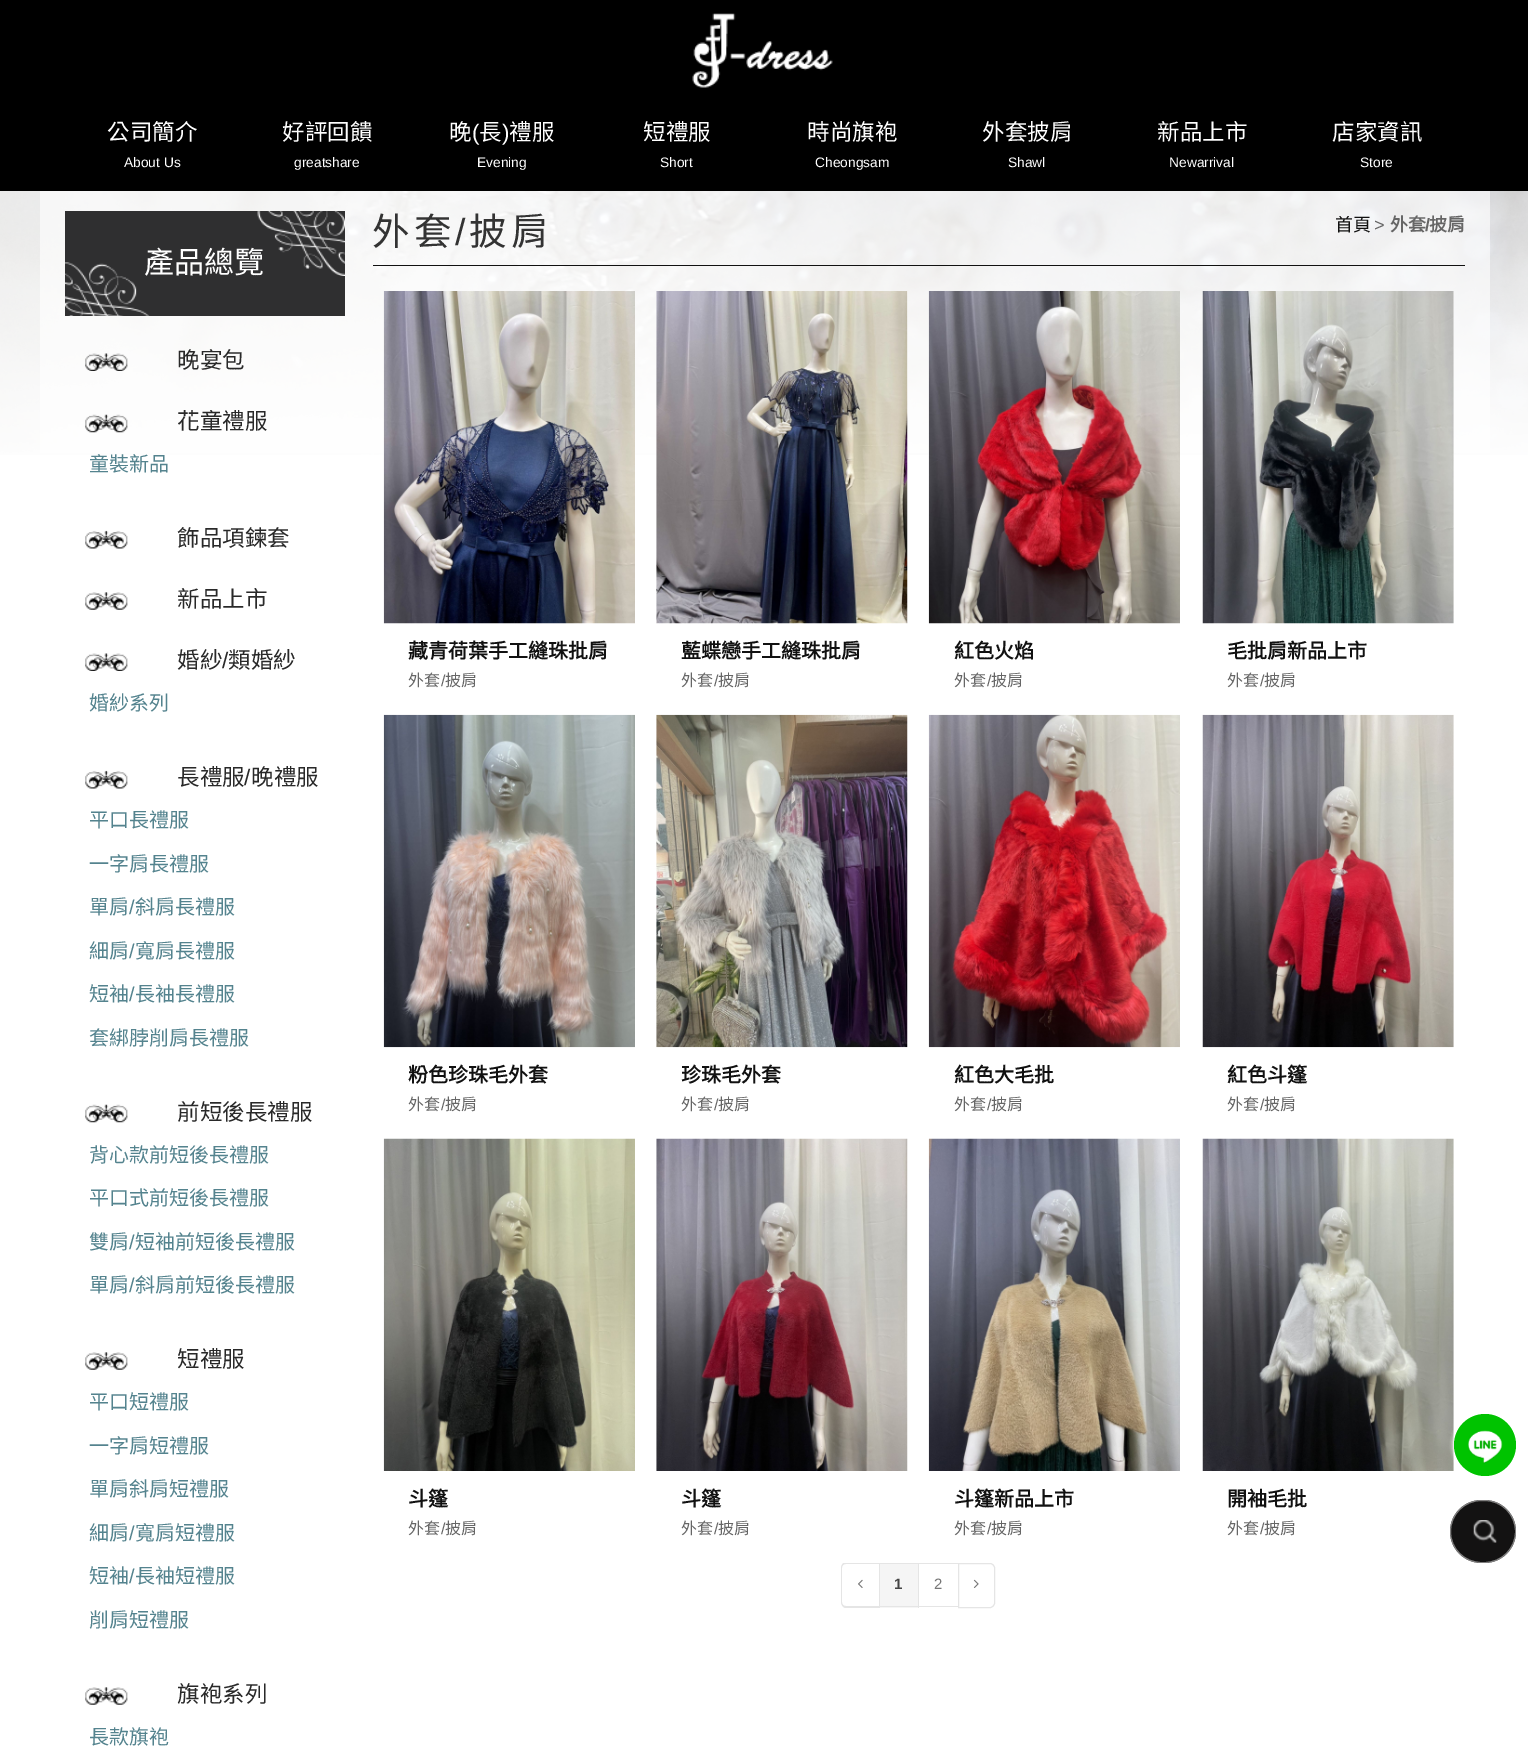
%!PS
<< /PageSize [1528 1751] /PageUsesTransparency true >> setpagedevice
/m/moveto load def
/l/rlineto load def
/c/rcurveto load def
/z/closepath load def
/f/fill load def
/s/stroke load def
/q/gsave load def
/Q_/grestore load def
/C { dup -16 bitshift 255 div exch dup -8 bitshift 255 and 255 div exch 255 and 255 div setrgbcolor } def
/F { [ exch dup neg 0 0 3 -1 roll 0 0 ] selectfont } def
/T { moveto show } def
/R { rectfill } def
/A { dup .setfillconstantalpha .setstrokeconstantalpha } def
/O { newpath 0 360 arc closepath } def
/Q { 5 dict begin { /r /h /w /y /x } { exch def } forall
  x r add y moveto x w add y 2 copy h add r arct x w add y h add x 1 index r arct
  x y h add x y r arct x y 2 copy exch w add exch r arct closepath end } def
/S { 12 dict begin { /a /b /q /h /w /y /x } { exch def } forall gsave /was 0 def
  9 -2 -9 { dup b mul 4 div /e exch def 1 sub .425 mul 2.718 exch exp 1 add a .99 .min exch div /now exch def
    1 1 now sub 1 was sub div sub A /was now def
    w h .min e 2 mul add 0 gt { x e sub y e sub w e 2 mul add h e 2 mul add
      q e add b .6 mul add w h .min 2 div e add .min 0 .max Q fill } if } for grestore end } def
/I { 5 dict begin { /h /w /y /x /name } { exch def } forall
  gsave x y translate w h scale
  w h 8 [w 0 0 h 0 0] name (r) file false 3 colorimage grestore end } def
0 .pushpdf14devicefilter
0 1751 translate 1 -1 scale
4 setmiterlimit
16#FFFFFF C
0 0 1528 1751 R
(1.rgb) 0 191 1528 264 I
16#000000 C
0 0 1528 191 R
(2.rgb) 692 13 141 75 I
/NotoSansCJKTC-Regular 22.5 F
16#FFFFFF C
(公司簡介) 107 140 T
/LiberationSans-Regular 13.75 F
(About Us) 124 167 T
/NotoSansCJKTC-Regular 22.5 F
(好評回饋) 282 140 T
/LiberationSans-Regular 13.75 F
(greatshare) 294 167 T
/NotoSansCJKTC-Regular 22.5 F
(晚) 449 140 T
/LiberationSans-Regular 22.5 F
(\() 472 140 T
/NotoSansCJKTC-Regular 22.5 F
(長) 479 140 T
/LiberationSans-Regular 22.5 F
(\)) 502 140 T
/NotoSansCJKTC-Regular 22.5 F
(禮服) 509 140 T
/LiberationSans-Regular 13.75 F
(Evening) 477 167 T
/NotoSansCJKTC-Regular 22.5 F
(短禮服) 643 140 T
/LiberationSans-Regular 13.75 F
(Short) 660 167 T
/NotoSansCJKTC-Regular 22.5 F
(時尚旗袍) 807 140 T
/LiberationSans-Regular 13.75 F
(Cheongsam) 815 167 T
/NotoSansCJKTC-Regular 22.5 F
(外套披肩) 982 140 T
/LiberationSans-Regular 13.75 F
(Shawl) 1008 167 T
/NotoSansCJKTC-Regular 22.5 F
(新品上市) 1157 140 T
/LiberationSans-Regular 13.75 F
(Newarrival) 1169 167 T
/NotoSansCJKTC-Regular 22.5 F
(店家資訊) 1332 140 T
/LiberationSans-Regular 13.75 F
(Store) 1360 167 T
0.6 A
40 191 1450 262 R
1 A
16#2F2F30 C
65 211 280 105 R
(3.rgb) 65 211 280 105 I
/NotoSansCJKTC-Regular 30 F
16#FFFFFF C
(產品總覽) 144 273 T
(4.rgb) 85 353 43 18 I
/NotoSansCJKTC-Regular 22.5 F
16#292929 C
(晚宴包) 177 368 T
(5.rgb) 85 414 43 19 I
(花童禮服) 177 429 T
/NotoSansCJKTC-Regular 20 F
16#54838E C
(童裝新品) 89 471 T
(6.rgb) 85 530 43 19 I
/NotoSansCJKTC-Regular 22.5 F
16#292929 C
(飾品項鍊套) 177 546 T
(7.rgb) 85 592 43 18 I
(新品上市) 177 607 T
(8.rgb) 85 653 43 18 I
(婚紗) 177 668 T
/LiberationSans-Regular 22.5 F
(/) 222 668 T
/NotoSansCJKTC-Regular 22.5 F
(類婚紗) 228 668 T
/NotoSansCJKTC-Regular 20 F
16#54838E C
(婚紗系列) 89 710 T
(6.rgb) 85 770 43 19 I
/NotoSansCJKTC-Regular 22.5 F
16#292929 C
(長禮服) 177 785 T
/LiberationSans-Regular 22.5 F
(/) 244 785 T
/NotoSansCJKTC-Regular 22.5 F
(晚禮服) 251 785 T
/NotoSansCJKTC-Regular 20 F
16#54838E C
(平口長禮服) 89 827 T
(一字肩長禮服) 89 871 T
(單肩) 89 914 T
/LiberationSans-Regular 20 F
(/) 129 914 T
/NotoSansCJKTC-Regular 20 F
(斜肩長禮服) 135 914 T
(細肩) 89 958 T
/LiberationSans-Regular 20 F
(/) 129 958 T
/NotoSansCJKTC-Regular 20 F
(寬肩長禮服) 135 958 T
(短袖) 89 1001 T
/LiberationSans-Regular 20 F
(/) 129 1001 T
/NotoSansCJKTC-Regular 20 F
(長袖長禮服) 135 1001 T
(套綁脖削肩長禮服) 89 1045 T
(9.rgb) 85 1104 43 19 I
/NotoSansCJKTC-Regular 22.5 F
16#292929 C
(前短後長禮服) 177 1120 T
/NotoSansCJKTC-Regular 20 F
16#54838E C
(背心款前短後長禮服) 89 1162 T
(平口式前短後長禮服) 89 1205 T
(雙肩) 89 1249 T
/LiberationSans-Regular 20 F
(/) 129 1249 T
/NotoSansCJKTC-Regular 20 F
(短袖前短後長禮服) 135 1249 T
(單肩) 89 1292 T
/LiberationSans-Regular 20 F
(/) 129 1292 T
/NotoSansCJKTC-Regular 20 F
(斜肩前短後長禮服) 135 1292 T
(7.rgb) 85 1352 43 18 I
/NotoSansCJKTC-Regular 22.5 F
16#292929 C
(短禮服) 177 1367 T
/NotoSansCJKTC-Regular 20 F
16#54838E C
(平口短禮服) 89 1409 T
(一字肩短禮服) 89 1453 T
(單肩斜肩短禮服) 89 1496 T
(細肩) 89 1540 T
/LiberationSans-Regular 20 F
(/) 129 1540 T
/NotoSansCJKTC-Regular 20 F
(寬肩短禮服) 135 1540 T
(短袖) 89 1583 T
/LiberationSans-Regular 20 F
(/) 129 1583 T
/NotoSansCJKTC-Regular 20 F
(長袖短禮服) 135 1583 T
(削肩短禮服) 89 1627 T
(7.rgb) 85 1687 43 18 I
/NotoSansCJKTC-Regular 22.5 F
16#292929 C
(旗袍系列) 177 1702 T
/NotoSansCJKTC-Regular 20 F
16#54838E C
(長款旗袍) 89 1744 T
16#111111 C
373 265 1092 1 R
/NotoSansCJKTC-Regular 37.5 F
16#333333 C
372 245 m 4 0 (外套) ashow
/LiberationSans-Regular 37.5 F
455 245 m 4 0 (/) ashow
/NotoSansCJKTC-Regular 37.5 F
469 245 m 4 0 (披肩) ashow
/NotoSansCJKTC-Regular 18 F
16#111111 C
(首頁) 1335 231 T
/LiberationSans-Regular 18 F
16#666666 C
(>) 1374 231 T
/NotoSansCJKTC-Bold 18 F
(外套) 1390 231 T
/LiberationSans-Bold 18 F
(/) 1425 231 T
/NotoSansCJKTC-Bold 18 F
(披肩) 1429 231 T
(10.rgb) 383 291 252 333 I
/NotoSansCJKTC-Bold 20 F
16#111111 C
(藏青荷葉手工縫珠批肩) 408 658 T
/NotoSansCJKTC-Regular 16 F
16#666666 C
(外套) 408 686 T
/LiberationSans-Regular 16 F
(/) 441 686 T
/NotoSansCJKTC-Regular 16 F
(披肩) 445 686 T
16#FFFFFF C
656 291 252 138 R
(11.rgb) 656 291 252 333 I
/NotoSansCJKTC-Bold 20 F
16#111111 C
(藍蝶戀手工縫珠批肩) 681 658 T
/NotoSansCJKTC-Regular 16 F
16#666666 C
(外套) 681 686 T
/LiberationSans-Regular 16 F
(/) 714 686 T
/NotoSansCJKTC-Regular 16 F
(披肩) 718 686 T
(12.rgb) 928 291 252 333 I
/NotoSansCJKTC-Bold 20 F
16#111111 C
(紅色火焰) 954 658 T
/NotoSansCJKTC-Regular 16 F
16#666666 C
(外套) 954 686 T
/LiberationSans-Regular 16 F
(/) 987 686 T
/NotoSansCJKTC-Regular 16 F
(披肩) 991 686 T
16#FFFFFF C
1203 291 251 124 R
(13.rgb) 1202 291 252 333 I
/NotoSansCJKTC-Bold 20 F
16#111111 C
(毛批肩新品上市) 1227 658 T
/NotoSansCJKTC-Regular 16 F
16#666666 C
(外套) 1227 686 T
/LiberationSans-Regular 16 F
(/) 1260 686 T
/NotoSansCJKTC-Regular 16 F
(披肩) 1264 686 T
(14.rgb) 383 714 252 334 I
/NotoSansCJKTC-Bold 20 F
16#111111 C
(粉色珍珠毛外套) 408 1082 T
/NotoSansCJKTC-Regular 16 F
16#666666 C
(外套) 408 1110 T
/LiberationSans-Regular 16 F
(/) 441 1110 T
/NotoSansCJKTC-Regular 16 F
(披肩) 445 1110 T
(15.rgb) 656 714 252 334 I
/NotoSansCJKTC-Bold 20 F
16#111111 C
(珍珠毛外套) 681 1082 T
/NotoSansCJKTC-Regular 16 F
16#666666 C
(外套) 681 1110 T
/LiberationSans-Regular 16 F
(/) 714 1110 T
/NotoSansCJKTC-Regular 16 F
(披肩) 718 1110 T
(16.rgb) 928 714 252 334 I
/NotoSansCJKTC-Bold 20 F
16#111111 C
(紅色大毛批) 954 1082 T
/NotoSansCJKTC-Regular 16 F
16#666666 C
(外套) 954 1110 T
/LiberationSans-Regular 16 F
(/) 987 1110 T
/NotoSansCJKTC-Regular 16 F
(披肩) 991 1110 T
(17.rgb) 1202 714 252 334 I
/NotoSansCJKTC-Bold 20 F
16#111111 C
(紅色斗篷) 1227 1082 T
/NotoSansCJKTC-Regular 16 F
16#666666 C
(外套) 1227 1110 T
/LiberationSans-Regular 16 F
(/) 1260 1110 T
/NotoSansCJKTC-Regular 16 F
(披肩) 1264 1110 T
(18.rgb) 383 1138 252 333 I
/NotoSansCJKTC-Bold 20 F
16#111111 C
(斗篷) 408 1506 T
/NotoSansCJKTC-Regular 16 F
16#666666 C
(外套) 408 1534 T
/LiberationSans-Regular 16 F
(/) 441 1534 T
/NotoSansCJKTC-Regular 16 F
(披肩) 445 1534 T
(19.rgb) 656 1138 252 333 I
/NotoSansCJKTC-Bold 20 F
16#111111 C
(斗篷) 681 1506 T
/NotoSansCJKTC-Regular 16 F
16#666666 C
(外套) 681 1534 T
/LiberationSans-Regular 16 F
(/) 714 1534 T
/NotoSansCJKTC-Regular 16 F
(披肩) 718 1534 T
(20.rgb) 928 1138 252 333 I
/NotoSansCJKTC-Bold 20 F
16#111111 C
(斗篷新品上市) 954 1506 T
/NotoSansCJKTC-Regular 16 F
16#666666 C
(外套) 954 1534 T
/LiberationSans-Regular 16 F
(/) 987 1534 T
/NotoSansCJKTC-Regular 16 F
(披肩) 991 1534 T
(21.rgb) 1202 1138 252 333 I
/NotoSansCJKTC-Bold 20 F
16#111111 C
(開袖毛批) 1227 1506 T
/NotoSansCJKTC-Regular 16 F
16#666666 C
(外套) 1227 1534 T
/LiberationSans-Regular 16 F
(/) 1260 1534 T
/NotoSansCJKTC-Regular 16 F
(披肩) 1264 1534 T
q
373 1563 1092 45 rectclip
16#E5E5E5 C
846 1562 m 33 0 l 0 46 l -33 0 l -3 0 -5 -3 -5 -6 c 0 -34 l 0 -3 2 -6 5 -6 c z 846 1564 m 33 0 l 0 42 l -33 0 l -2 0 -4 -1 -4 -4 c 0 -34 l 0 -3 2 -4 4 -4 c z eofill
Q_
(22.rgb) 858 1579 5 9 I
16#F5F5F5 C
880 1564 38 44 R
16#E5E5E5 C
879 1563 79 1 R
879 1606 79 1 R
879 1563 1 45 R
/LiberationSans-Bold 15 F
16#444444 C
(1) 894 1589 T
16#E5E5E5 C
918 1563 1 45 R
/LiberationSans-Regular 15 F
16#777777 C
(2) 934 1589 T
16#E5E5E5 C
958.5 1563.5 m 31.5 0 l 2.5 0 4.5 2 4.5 4.5 c 0 35 l 0 2.5 -2 4.5 -4.5 4.5 c -31.5 0 l z s
(23.rgb) 973 1579 6 9 I
16#FFFFFF C
1454 1414 62 62 31 2 1 S
1454 1414 62 62 31 2 1 S
16#00C300 C
1485 1445 31 O f
(24.rgb) 1468 1430 35 34 I
16#131212 C
1450 1500 66 63 31.5 Q f
0.47 A
16#F8F8F8 C
1450.5 1500.5 65 62 31 Q s
1 A
(25.rgb) 1473 1520 24 23 I
.poppdf14devicefilter showpage
